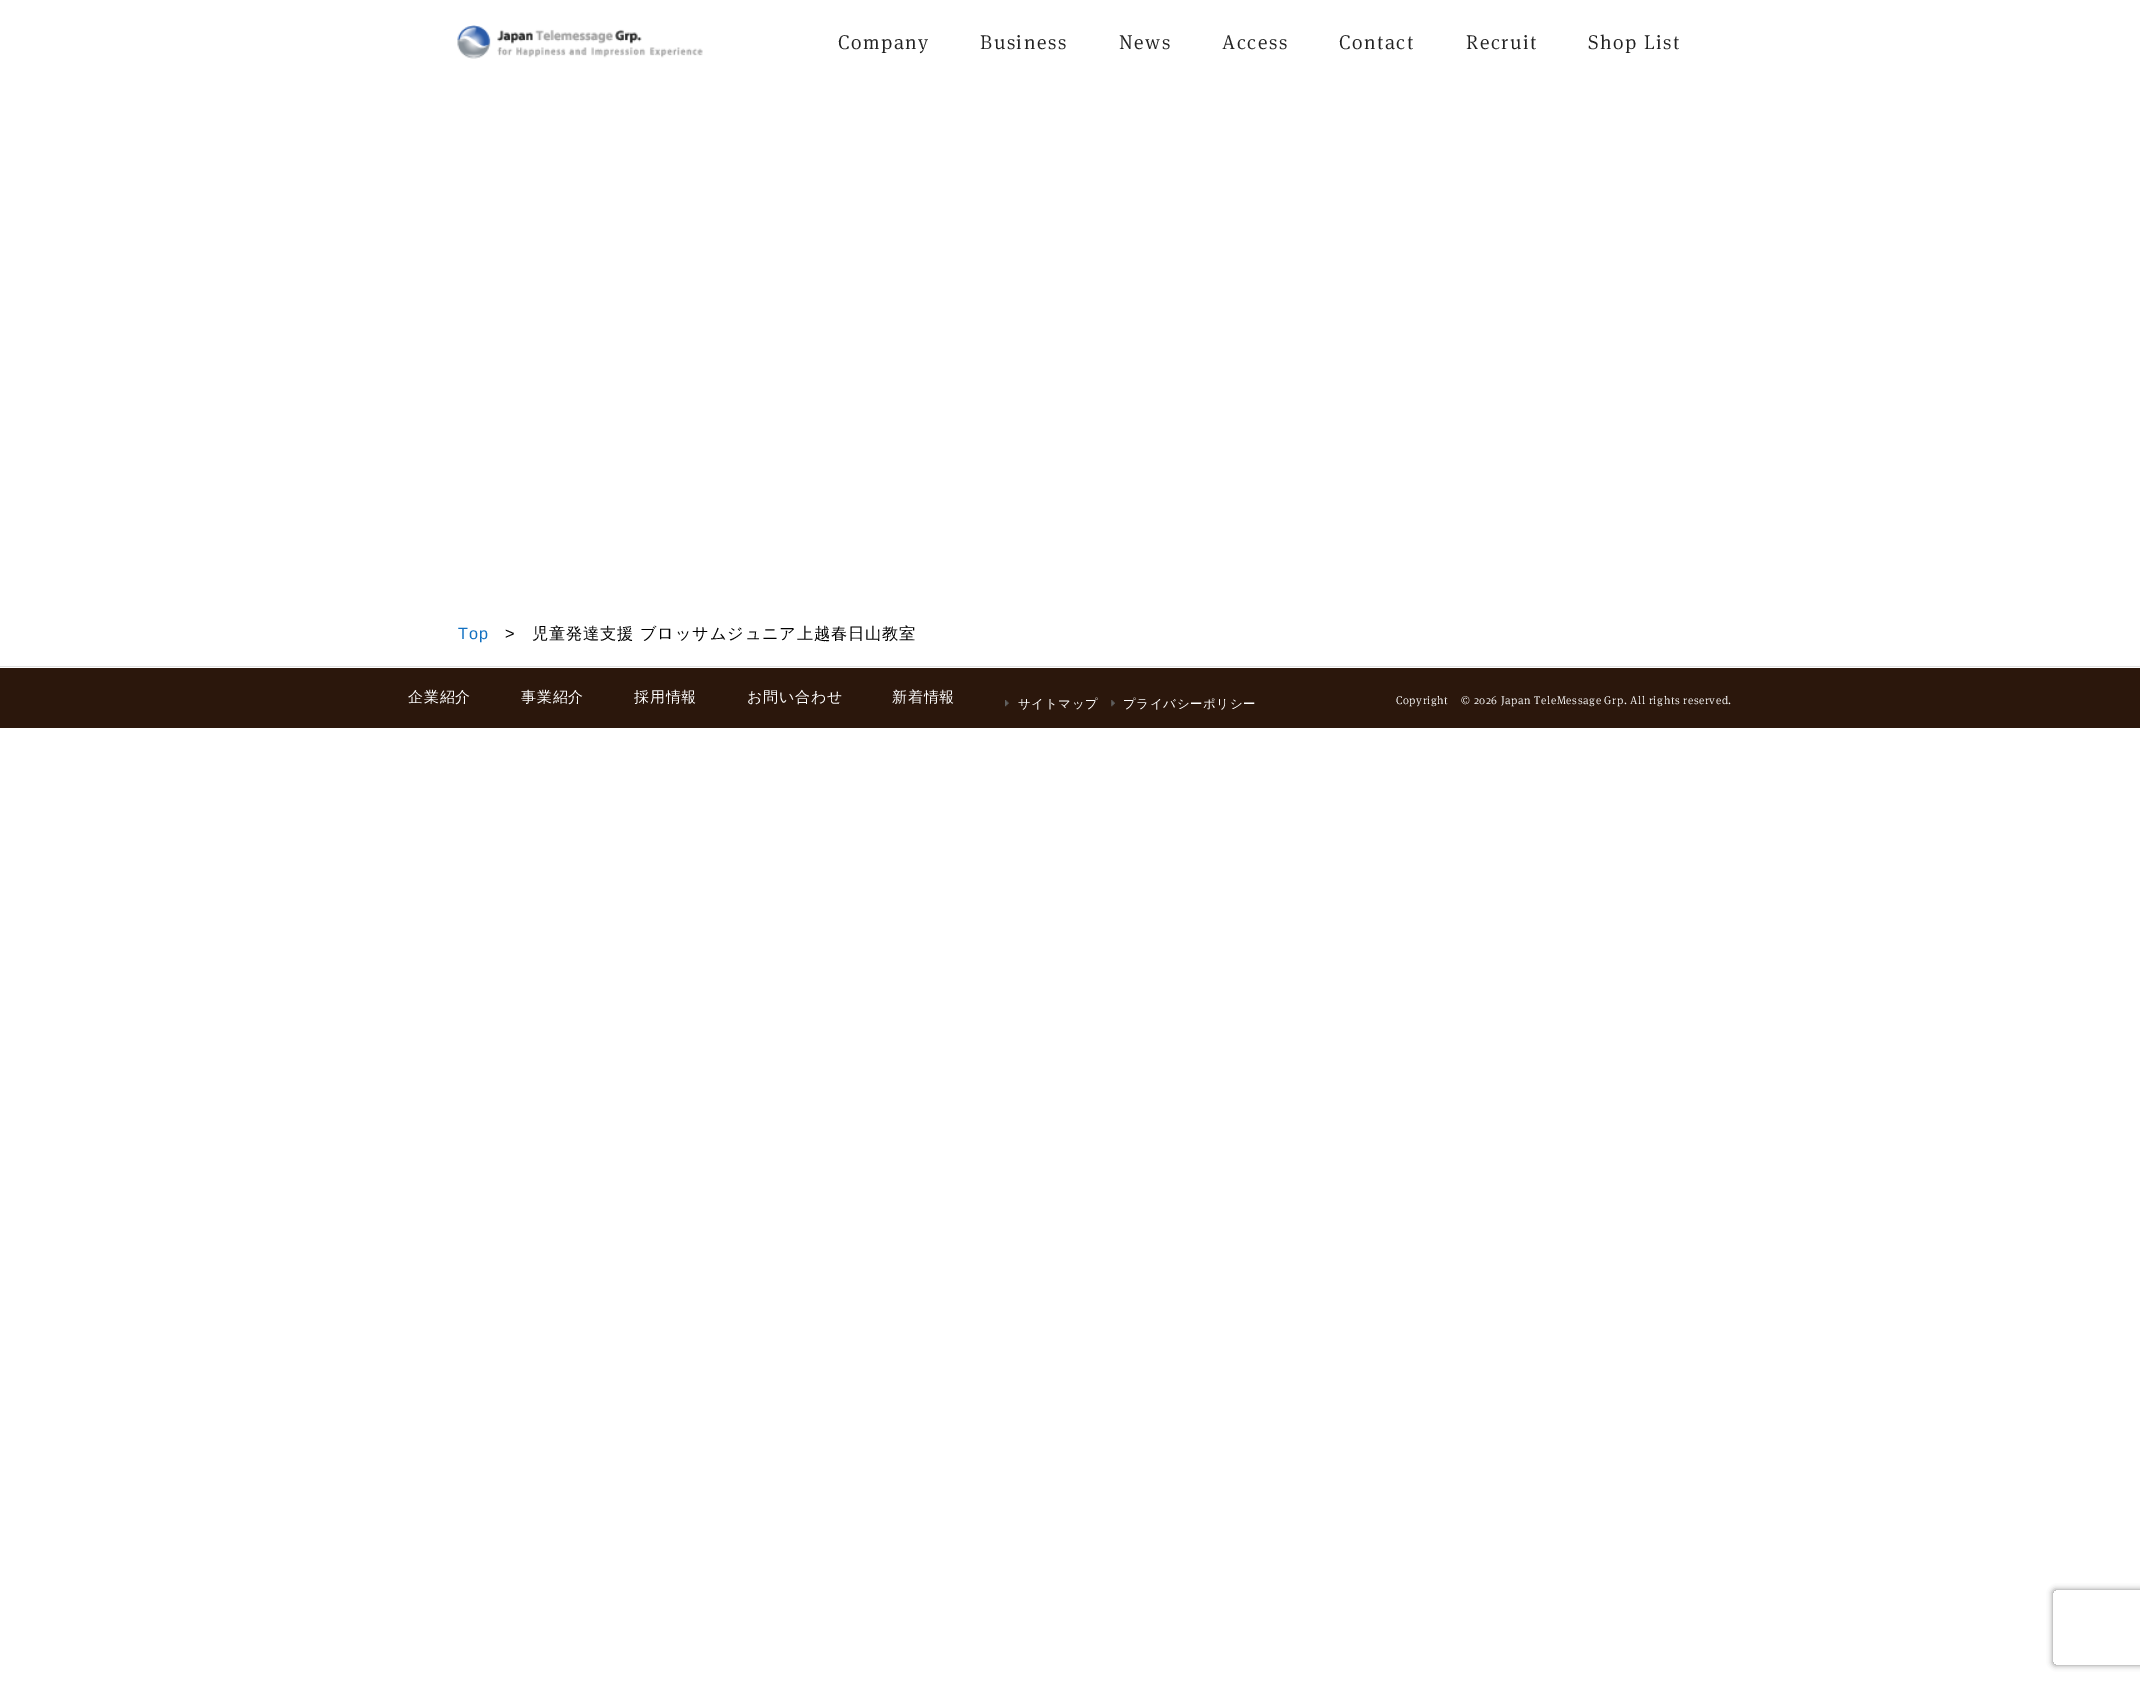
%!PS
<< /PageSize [2140 1682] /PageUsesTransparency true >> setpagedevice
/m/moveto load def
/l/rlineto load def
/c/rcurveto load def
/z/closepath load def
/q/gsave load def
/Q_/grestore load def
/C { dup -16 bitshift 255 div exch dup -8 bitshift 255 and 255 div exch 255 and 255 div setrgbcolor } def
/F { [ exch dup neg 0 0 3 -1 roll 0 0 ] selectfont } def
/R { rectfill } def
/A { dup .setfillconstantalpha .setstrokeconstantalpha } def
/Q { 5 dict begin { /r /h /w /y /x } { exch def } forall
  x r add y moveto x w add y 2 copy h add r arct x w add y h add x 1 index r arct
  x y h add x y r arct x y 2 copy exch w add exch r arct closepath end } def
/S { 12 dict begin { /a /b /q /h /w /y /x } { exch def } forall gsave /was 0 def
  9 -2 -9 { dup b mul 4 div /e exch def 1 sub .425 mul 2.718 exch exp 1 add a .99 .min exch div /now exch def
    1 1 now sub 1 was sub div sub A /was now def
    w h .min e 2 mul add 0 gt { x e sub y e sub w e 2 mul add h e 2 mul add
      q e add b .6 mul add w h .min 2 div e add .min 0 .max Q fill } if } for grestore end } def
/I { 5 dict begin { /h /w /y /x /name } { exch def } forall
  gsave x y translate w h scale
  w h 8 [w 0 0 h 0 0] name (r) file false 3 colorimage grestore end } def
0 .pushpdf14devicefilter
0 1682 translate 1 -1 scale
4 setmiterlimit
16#FFFFFF C
0 0 2140 1682 R
(1.rgb) 457 25 246 34 I
/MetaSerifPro-Light 20 F
16#222222 C
838 49 m 1.5 0 (Company) ashow
980 49 m 1.5 0 (Business) ashow
1119 49 m 1.5 0 (News) ashow
1222 49 m 1.5 0 (Access) ashow
1339 49 m 1.5 0 (Contact) ashow
1466 49 m 1.5 0 (Recruit) ashow
1588 49 m 1.5 0 (Shop List) ashow
16#E2E2E2 C
0 666 2140 1 R
/LiberationSans-Regular 16.25 F
16#1170C1 C
458 639 m .8 0 (Top) ashow
16#000000 C
505 639 m .8 0 (>) ashow
/WenQuanYiZenHei-Medium 16.25 F
532 639 m .8 0 (児童発達支援 ブロッサムジュニア上越春日山教室) ashow
16#2B170C C
0 668 2140 60 R
/WenQuanYiZenHei-Medium 15 F
16#FFFFFF C
408 702 m .75 0 (企業紹介) ashow
521 702 m .75 0 (事業紹介) ashow
634 702 m .75 0 (採用情報) ashow
747 702 m .75 0 (お問い合わせ) ashow
892 702 m .75 0 (新着情報) ashow
(2.rgb) 1005 700 4 7 I
/WenQuanYiZenHei-Medium 12.5 F
1018 708 m .6 0 (サイトマップ) ashow
(3.rgb) 1111 700 4 7 I
1123 708 m .6 0 (プライバシーポリシー) ashow
/MetaSerifPro-Light 11.25 F
1396 704 m .55 0 (Copyright) ashow
1461 704 m .55 0 (© 2026 Japan TeleMessage Grp. All rights reserved.) ashow
q
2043 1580 m 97 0 l 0 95 l -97 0 l z 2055.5 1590 m 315 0 l 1.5 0 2.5 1 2.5 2.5 c 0 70 l 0 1.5 -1 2.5 -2.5 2.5 c -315 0 l -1.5 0 -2.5 -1 -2.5 -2.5 c 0 -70 l 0 -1.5 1 -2.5 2.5 -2.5 c z eoclip newpath
16#808080 C
2053 1590 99 75 2.5 3 1 S
Q_
.poppdf14devicefilter showpage
